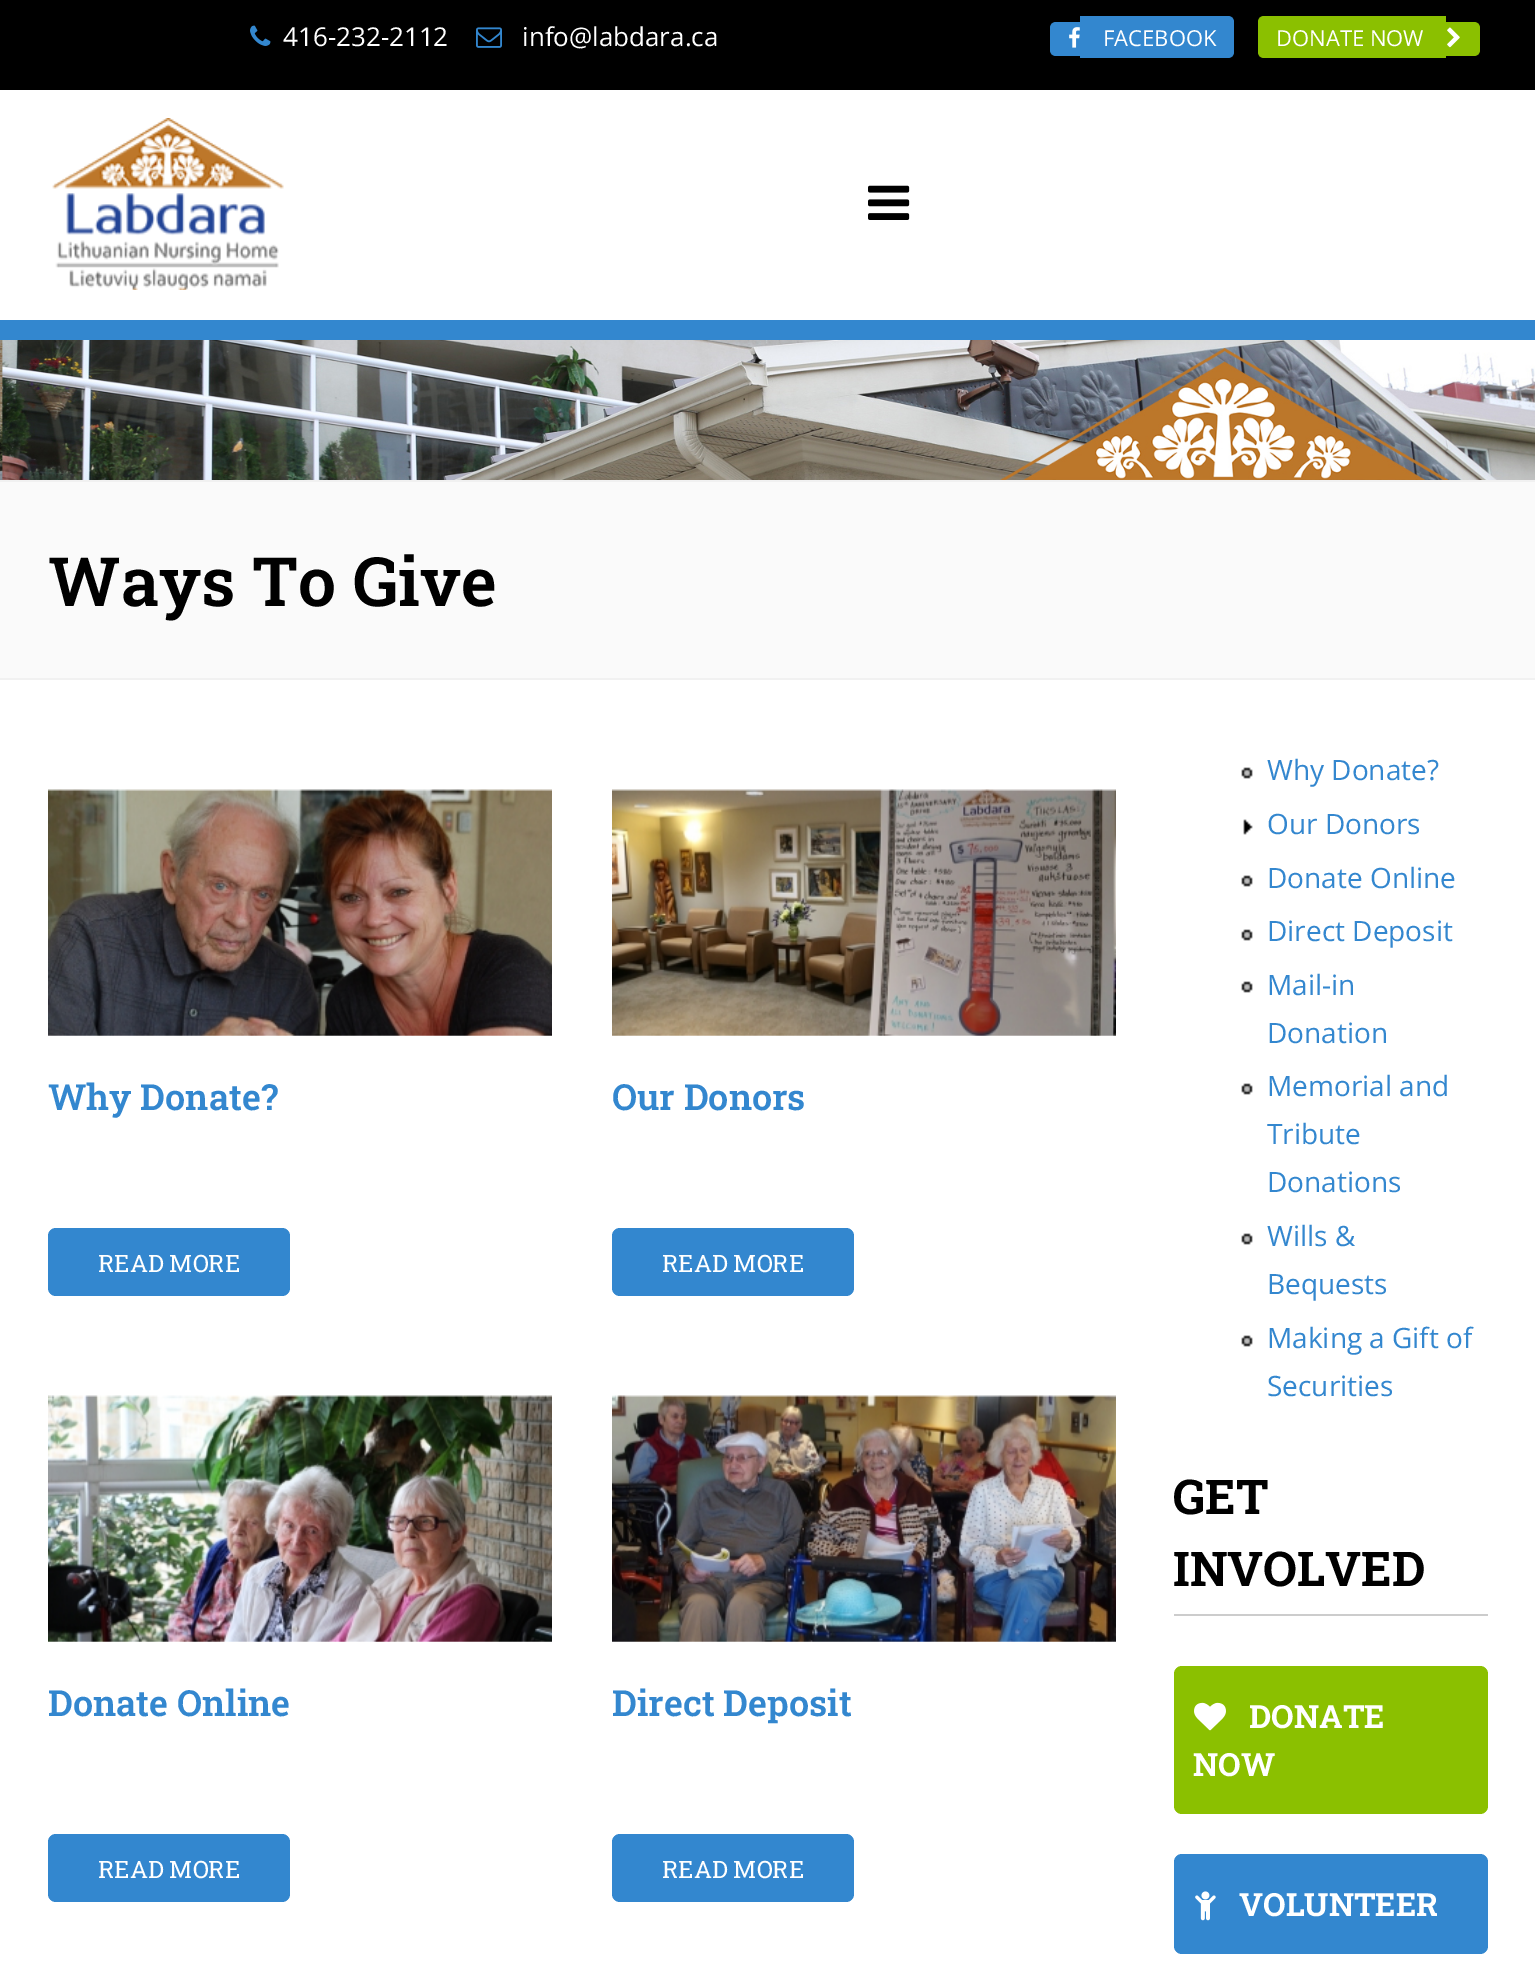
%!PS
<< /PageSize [1535 1981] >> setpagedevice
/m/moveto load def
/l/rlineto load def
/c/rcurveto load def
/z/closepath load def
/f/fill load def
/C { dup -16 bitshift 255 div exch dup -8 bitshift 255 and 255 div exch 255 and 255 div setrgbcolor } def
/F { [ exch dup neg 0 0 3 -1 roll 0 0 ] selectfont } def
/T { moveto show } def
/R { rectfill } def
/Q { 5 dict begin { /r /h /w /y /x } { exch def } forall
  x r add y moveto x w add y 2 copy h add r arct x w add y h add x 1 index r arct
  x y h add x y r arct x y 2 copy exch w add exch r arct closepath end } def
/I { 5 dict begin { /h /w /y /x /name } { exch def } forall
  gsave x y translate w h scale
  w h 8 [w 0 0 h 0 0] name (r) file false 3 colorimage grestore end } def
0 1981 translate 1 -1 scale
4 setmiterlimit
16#FFFFFF C
0 0 1535 1981 R
16#000000 C
0 0 1535 90 R
(1.rgb) 250 25 21 21 I
/OpenSans-Regular 26 F
16#FFFFFF C
(416-232-2112) 283 46 T
(2.rgb) 476 27 26 21 I
(info@labdara.ca) 522 46 T
16#3387CF C
1056 22 m 24 0 l 0 34 l -24 0 l -3.5 0 -6 -2.5 -6 -6 c 0 -22 l 0 -3.5 2.5 -6 6 -6 c z f
1080 16 m 148 0 l 3.5 0 6 2.5 6 6 c 0 30 l 0 3.5 -2.5 6 -6 6 c -148 0 l z f
(3.rgb) 1069 27 11 21 I
/OpenSans-Regular 22 F
16#FFFFFF C
(FACEBOOK) 1103 46 T
16#8BC000 C
1264 16 m 182 0 l 0 42 l -182 0 l -3.5 0 -6 -2.5 -6 -6 c 0 -30 l 0 -3.5 2.5 -6 6 -6 c z f
1446 22 m 28 0 l 3.5 0 6 2.5 6 6 c 0 22 l 0 3.5 -2.5 6 -6 6 c -28 0 l z f
16#FFFFFF C
(DONATE NOW) 1276 46 T
(4.rgb) 1447 27 13 21 I
16#3387CF C
0 320 1535 20 R
(5.rgb) 52 118 232 172 I
(6.rgb) 868 185 42 35 I
(7.rgb) 0 340 1535 140 I
16#FAFAFA C
0 482 1535 196 R
16#F1F1F1 C
0 480 1535 2 R
0 678 1535 2 R
/RobotoSlab-SemiBold 68 F
16#000000 C
(Ways To Give) 48 606 T
(8.rgb) 48 789 504 247 I
/RobotoSlab-SemiBold 36 F
16#3387CF C
(Why Donate?) 48 1110 T
48 1228 242 68 8 Q f
/RobotoSlab-Regular 24 F
16#FFFFFF C
(READ MORE) 98 1272 T
(9.rgb) 612 789 504 247 I
/RobotoSlab-SemiBold 36 F
16#3387CF C
(Our Donors) 612 1110 T
612 1228 242 68 8 Q f
/RobotoSlab-Regular 24 F
16#FFFFFF C
(READ MORE) 662 1272 T
(10.rgb) 48 1395 504 247 I
/RobotoSlab-SemiBold 36 F
16#3387CF C
(Donate Online) 48 1716 T
48 1834 242 68 8 Q f
/RobotoSlab-Regular 24 F
16#FFFFFF C
(READ MORE) 98 1878 T
(11.rgb) 612 1395 504 247 I
/RobotoSlab-SemiBold 36 F
16#3387CF C
(Direct Deposit) 612 1716 T
612 1834 242 68 8 Q f
/RobotoSlab-Regular 24 F
16#FFFFFF C
(READ MORE) 662 1878 T
(12.rgb) 1241 767 12 12 I
/OpenSans-Regular 28 F
16#3387CF C
(Why Donate?) 1267 780 T
(13.rgb) 1243 819 10 16 I
(Our Donors) 1267 834 T
(12.rgb) 1241 875 12 12 I
(Donate Online) 1267 888 T
(12.rgb) 1241 929 12 12 I
(Direct Deposit) 1267 941 T
(12.rgb) 1241 981 12 12 I
(Mail-in) 1267 995 T
(Donation) 1267 1043 T
(12.rgb) 1241 1083 12 12 I
(Memorial and) 1267 1096 T
(Tribute) 1267 1144 T
(Donations) 1267 1192 T
(12.rgb) 1241 1233 12 12 I
(Wills &) 1267 1246 T
(Bequests) 1267 1294 T
(12.rgb) 1241 1335 12 12 I
(Making a Gift of) 1267 1348 T
(Securities) 1267 1396 T
16#CCCCCC C
1174 1614 314 2 R
/RobotoSlab-Bold 48 F
16#000000 C
(GET) 1173 1514 T
(INVOLVED) 1173 1586 T
16#8BC000 C
1174 1666 314 148 8 Q f
(14.rgb) 1194 1702 32 29 I
/RobotoSlab-Bold 32 F
16#FFFFFF C
(DONATE) 1249 1728 T
(NOW) 1193 1776 T
16#3387CF C
1174 1854 314 100 8 Q f
(15.rgb) 1195 1891 21 30 I
16#FFFFFF C
(VOLUNTEER) 1239 1916 T
showpage
